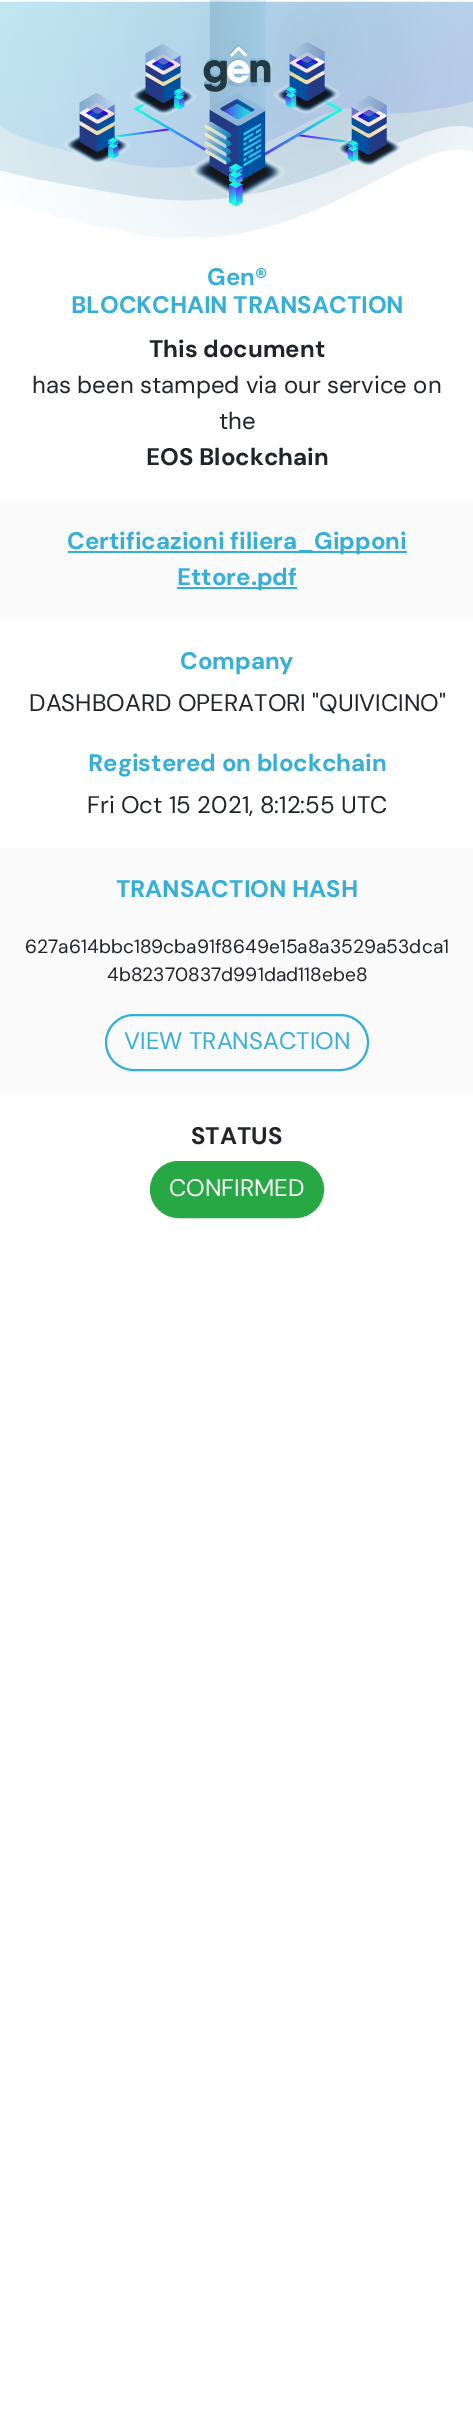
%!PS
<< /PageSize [473 2414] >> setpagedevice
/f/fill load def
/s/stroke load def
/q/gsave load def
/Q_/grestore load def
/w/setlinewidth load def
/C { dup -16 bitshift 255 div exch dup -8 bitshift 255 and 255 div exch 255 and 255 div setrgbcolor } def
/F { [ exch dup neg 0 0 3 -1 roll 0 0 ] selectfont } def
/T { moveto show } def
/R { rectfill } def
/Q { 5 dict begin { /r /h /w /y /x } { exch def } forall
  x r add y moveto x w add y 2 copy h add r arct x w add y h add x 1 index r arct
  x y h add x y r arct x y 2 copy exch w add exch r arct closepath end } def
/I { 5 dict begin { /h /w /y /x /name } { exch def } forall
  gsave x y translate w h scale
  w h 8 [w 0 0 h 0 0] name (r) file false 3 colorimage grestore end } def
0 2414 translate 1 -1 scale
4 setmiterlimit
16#FFFFFF C
0 0 473 2414 R
(1.rgb) 0 0 473 238 I
/DMSans-Bold 24 F
16#35AFD7 C
(Gen®) 207 285 T
(BLOCKCHAIN TRANSACTION) 71 313 T
16#212529 C
(This document) 149 357 T
/DMSans-Regular 24 F
(has been stamped via our service on) 32 393 T
(the) 219 429 T
/DMSans-Bold 24 F
(EOS Blockchain) 146 465 T
16#FAFAFA C
0 500 473 120 R
16#35AFD7 C
68 551 339 2 R
(Certificazioni filiera_Gipponi) 67 549 T
177 587 120 2 R
(Ettore.pdf) 177 585 T
(Company) 180 669 T
/DMSans-Regular 24 F
16#212529 C
(DASHBOARD OPERATORI "QUIVICINO") 29 711 T
/DMSans-Bold 24 F
16#35AFD7 C
(Registered on blockchain) 88 771 T
/DMSans-Regular 24 F
16#212529 C
(Fri Oct 15 2021, 8:12:55 UTC) 87 813 T
16#FAFAFA C
0 848 473 247 R
/DMSans-Bold 24 F
16#35AFD7 C
(TRANSACTION HASH) 116 897 T
/DMSans-Regular 19.2 F
16#212529 C
(627a614bbc189cba91f8649e15a8a3529a53dca1) 25 953 T
(4b82370837d991dad118ebe8) 107 981 T
16#35AFD7 C
2 w
106 1015 262 55 27.5 Q s
/DMSans-Regular 24 F
(VIEW TRANSACTION) 124 1049 T
/DMSans-Bold 24 F
16#212529 C
(STATUS) 191 1144 T
16#28A745 C
151 1162 172 55 27.5 Q q f Q_
s
/DMSans-Regular 24 F
16#FFFFFF C
(CONFIRMED) 169 1196 T
showpage
